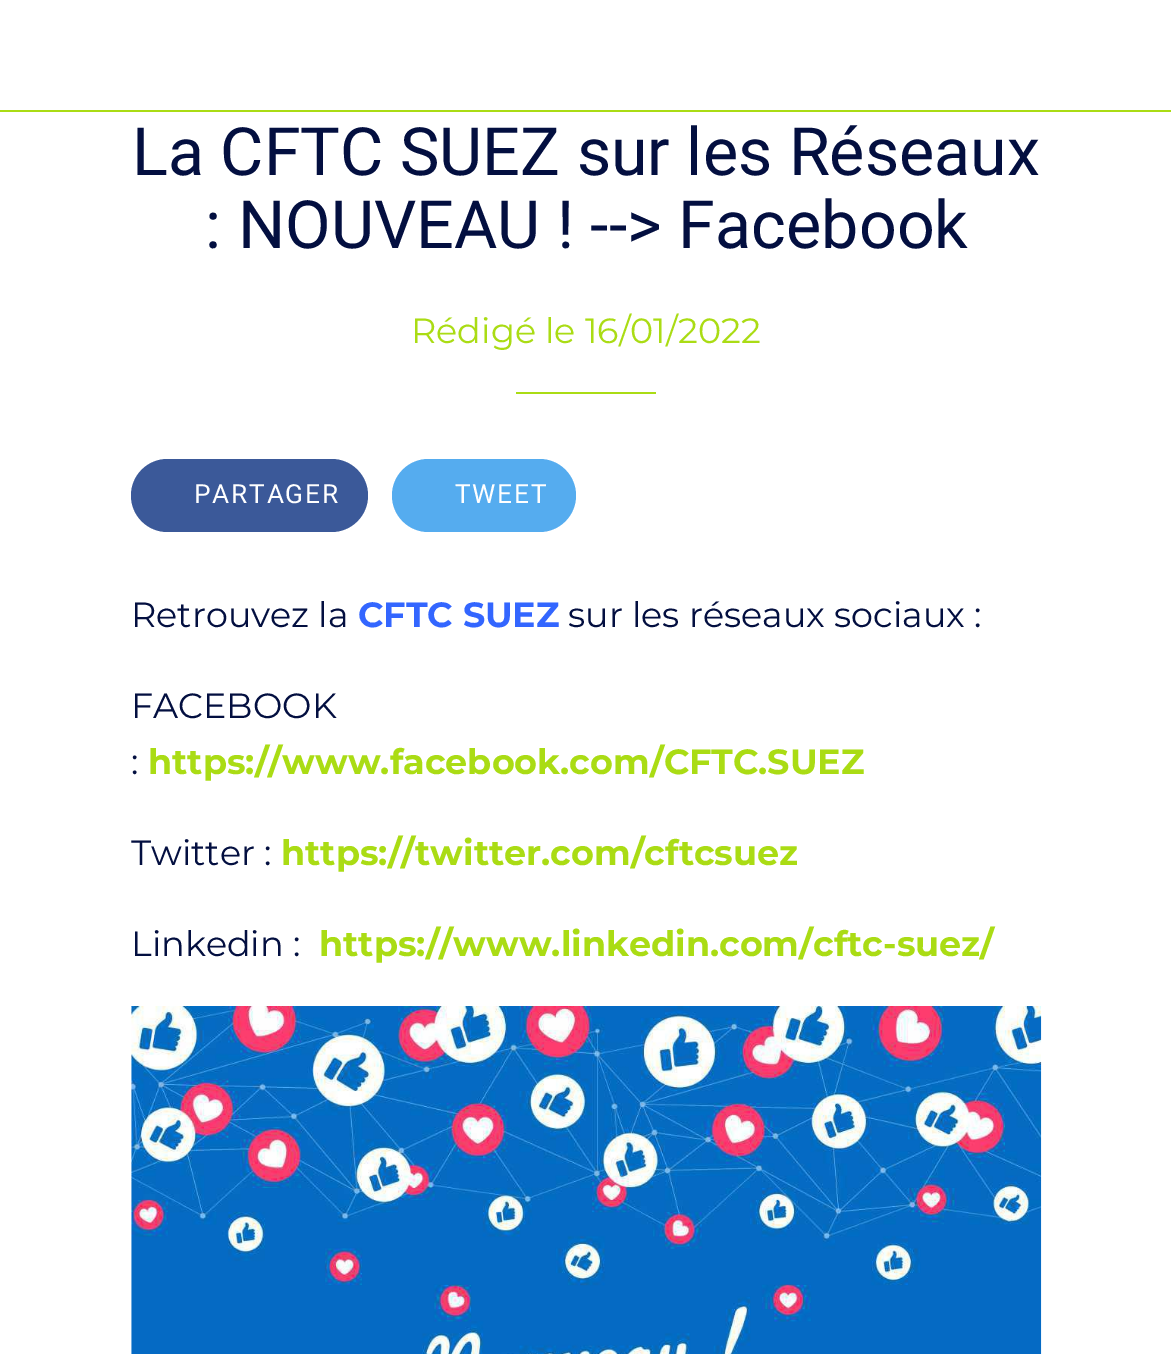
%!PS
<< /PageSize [1171 1354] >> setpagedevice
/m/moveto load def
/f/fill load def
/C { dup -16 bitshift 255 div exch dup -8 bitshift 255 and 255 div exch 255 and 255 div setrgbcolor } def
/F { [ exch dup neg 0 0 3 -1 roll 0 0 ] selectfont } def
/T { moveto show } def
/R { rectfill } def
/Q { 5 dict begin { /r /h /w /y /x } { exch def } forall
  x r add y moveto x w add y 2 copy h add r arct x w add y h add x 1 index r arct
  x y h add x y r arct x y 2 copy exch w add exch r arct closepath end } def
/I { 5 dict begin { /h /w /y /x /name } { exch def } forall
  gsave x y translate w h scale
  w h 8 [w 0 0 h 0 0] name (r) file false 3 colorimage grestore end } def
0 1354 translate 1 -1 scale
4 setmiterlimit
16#FFFFFF C
0 0 1171 1354 R
16#AADC14 C
0 110 1171 2 R
/Roboto-Regular 66.5 F
16#030F40 C
(La CFTC SUEZ sur les Réseaux) 132 175 T
(: NOUVEAU ! --> Facebook) 205 248 T
/Montserrat-Regular 35 F
16#AADC14 C
(Rédigé le 16/01/2022) 411 343 T
516 392 140 2 R
16#3B5999 C
131 459 237 73 36.5 Q f
/Roboto-Regular 26.25 F
16#FFFFFF C
194 503 m 1.75 0 (PARTAGER) ashow
16#55ACEF C
392 459 184 73 36.5 Q f
16#FFFFFF C
455 503 m 1.75 0 (TWEET) ashow
/Montserrat-Regular 35 F
16#030F40 C
(Retrouvez la) 131 627 T
/Montserrat-Bold 35 F
16#3366FF C
(CFTC SUEZ) 358 627 T
/Montserrat-Regular 35 F
16#030F40 C
(sur les réseaux sociaux :) 568 627 T
(FACEBOOK) 131 718 T
(:) 131 774 T
/Montserrat-Bold 35 F
16#AADC14 C
(https://www.facebook.com/CFTC.SUEZ) 148 774 T
/Montserrat-Regular 35 F
16#030F40 C
(Twitter :) 131 865 T
/Montserrat-Bold 35 F
16#AADC14 C
(https://twitter.com/cftcsuez) 281 865 T
/Montserrat-Regular 35 F
16#030F40 C
(Linkedin :) 131 956 T
/Montserrat-Bold 35 F
16#AADC14 C
(https://www.linkedin.com/cftc-suez/) 319 956 T
(1.rgb) 131 1006 911 348 I
showpage
